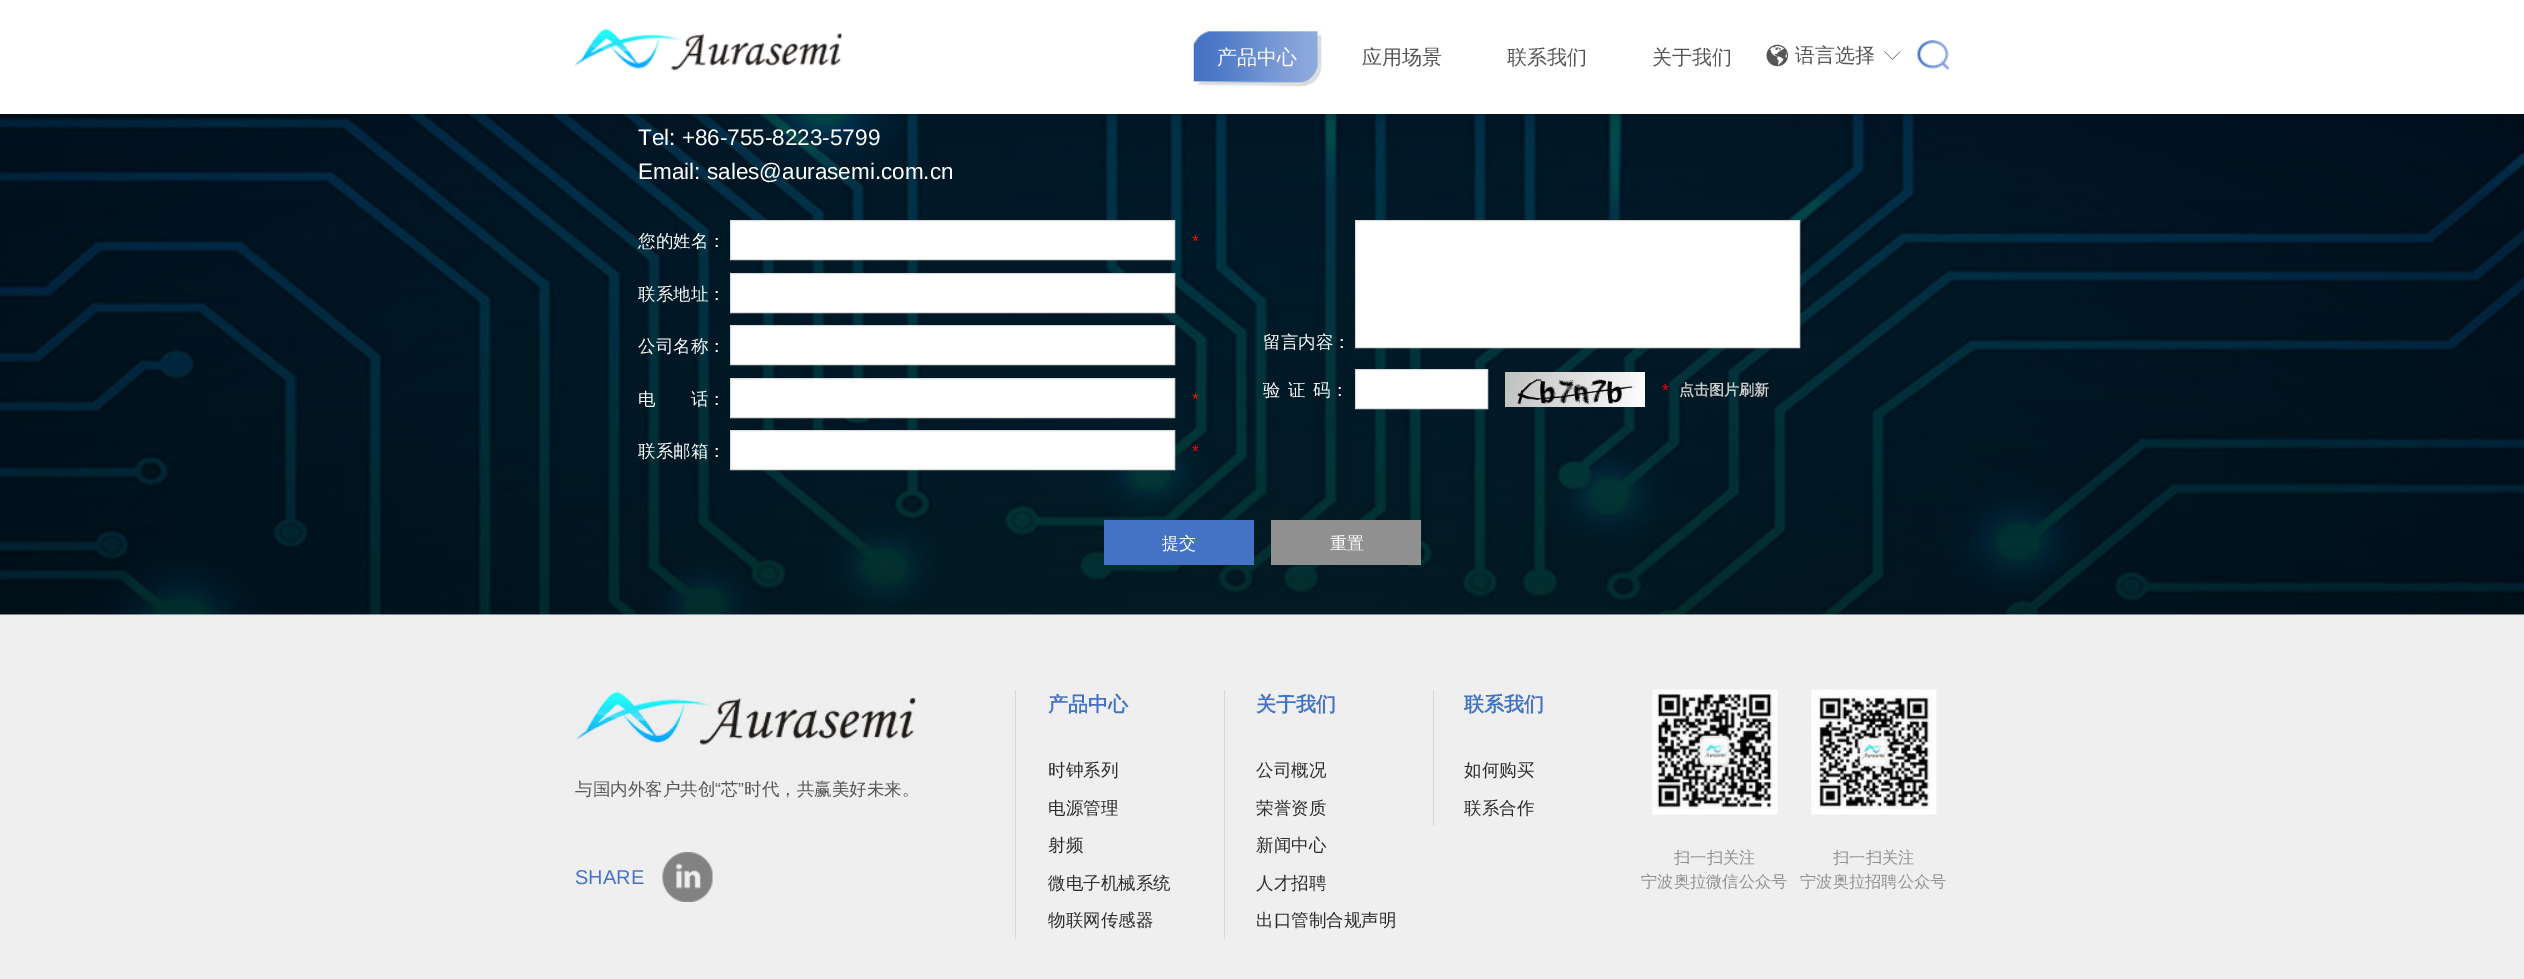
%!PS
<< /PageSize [2524 979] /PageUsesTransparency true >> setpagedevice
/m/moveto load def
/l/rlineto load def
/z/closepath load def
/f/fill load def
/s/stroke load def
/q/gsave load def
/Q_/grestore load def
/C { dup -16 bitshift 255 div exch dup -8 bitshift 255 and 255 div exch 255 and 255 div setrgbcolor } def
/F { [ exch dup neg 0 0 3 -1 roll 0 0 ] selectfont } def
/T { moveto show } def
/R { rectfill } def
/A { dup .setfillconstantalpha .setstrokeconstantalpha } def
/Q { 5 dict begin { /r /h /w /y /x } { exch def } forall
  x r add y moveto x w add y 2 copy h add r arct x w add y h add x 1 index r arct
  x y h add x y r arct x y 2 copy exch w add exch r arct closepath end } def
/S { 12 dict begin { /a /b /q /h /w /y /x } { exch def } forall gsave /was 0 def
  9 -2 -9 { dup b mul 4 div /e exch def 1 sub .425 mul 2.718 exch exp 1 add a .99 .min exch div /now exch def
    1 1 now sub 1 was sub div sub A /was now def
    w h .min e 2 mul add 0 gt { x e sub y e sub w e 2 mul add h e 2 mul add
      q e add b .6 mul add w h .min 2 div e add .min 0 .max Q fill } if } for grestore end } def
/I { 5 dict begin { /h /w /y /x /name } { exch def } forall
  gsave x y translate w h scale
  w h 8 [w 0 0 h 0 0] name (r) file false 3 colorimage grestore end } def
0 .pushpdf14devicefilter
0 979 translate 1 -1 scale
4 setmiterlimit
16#FFFFFF C
0 0 2524 979 R
(6.rgb) 0 114 2524 501 I
16#000000 C
0 0 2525 114 0 6 .3 S
16#FFFFFF C
0 0 2524 114 R
(1.rgb) 575 28 267 43 I
(2.rgb) 1193 31 129 56 I
/WenQuanYiZenHei-Medium 20 F
(产品中心) 1217 64 T
16#555555 C
(应用场景) 1362 64 T
(联系我们) 1507 64 T
(关于我们) 1652 64 T
(3.rgb) 1766 44 23 23 I
(语言选择) 1795 62 T
(4.rgb) 1884 51 17 9 I
(5.rgb) 1917 40 32 31 I
/LiberationSans-Regular 22.5 F
16#FFFFFF C
(Tel: +86-755-8223-5799) 638 145 T
(Email: sales@aurasemi.com.cn) 638 179 T
/WenQuanYiZenHei-Medium 17.5 F
(您的姓名：) 638 247 T
730.5 220.5 m 444 0 l 0 39 l -444 0 l z q f Q_
16#DDDDDD C
s
/LiberationSans-Regular 17.5 F
16#FF0000 C
(*) 1192 247 T
/WenQuanYiZenHei-Medium 17.5 F
16#FFFFFF C
(联系地址：) 638 300 T
730.5 273.5 m 444 0 l 0 39 l -444 0 l z q f Q_
16#DDDDDD C
s
16#FFFFFF C
(公司名称：) 638 352 T
730.5 325.5 m 444 0 l 0 39 l -444 0 l z q f Q_
16#DDDDDD C
s
16#FFFFFF C
(电　　话：) 638 405 T
730.5 378.5 m 444 0 l 0 39 l -444 0 l z q f Q_
16#DDDDDD C
s
/LiberationSans-Regular 17.5 F
16#FF0000 C
(*) 1192 405 T
/WenQuanYiZenHei-Medium 17.5 F
16#FFFFFF C
(联系邮箱：) 638 457 T
730.5 430.5 m 444 0 l 0 39 l -444 0 l z q f Q_
16#DDDDDD C
s
/LiberationSans-Regular 17.5 F
16#FF0000 C
(*) 1192 457 T
/WenQuanYiZenHei-Medium 17.5 F
16#FFFFFF C
(留言内容：) 1263 348 T
1355.5 220.5 m 444 0 l 0 127 l -444 0 l z q f Q_
16#DDDDDD C
s
16#FFFFFF C
(验) 1263 396 T
(证) 1288 396 T
(码：) 1313 396 T
1355.5 369.5 m 132 0 l 0 39 l -132 0 l z q f Q_
16#DDDDDD C
s
(7.rgb) 1505 372 140 35 I
/LiberationSans-Regular 17.5 F
16#FF0000 C
(*) 1662 396 T
/WenQuanYiZenHei-Bold 15 F
16#CCCCCC C
(点击图片刷新) 1679 395 T
16#4472C4 C
1104 520 150 45 R
/WenQuanYiZenHei-Medium 17 F
16#FFFFFF C
(提交) 1162 549 T
16#909090 C
1271 520 150 45 R
16#FFFFFF C
(重置) 1330 549 T
16#EFEFEF C
0 615 2524 364 R
(8.rgb) 575 689 341 60 I
/WenQuanYiZenHei-Medium 17.5 F
16#555555 C
(与国内外客户共创) 575 795 T
/LiberationSans-Regular 17.5 F
(“) 715 795 T
/WenQuanYiZenHei-Medium 17.5 F
(芯) 721 795 T
/LiberationSans-Regular 17.5 F
(”) 738 795 T
/WenQuanYiZenHei-Medium 17.5 F
(时代，共赢美好未来。) 744 795 T
/LiberationSans-Regular 20 F
16#4472C4 C
(SHARE) 575 884 T
(9.rgb) 662 852 51 50 I
16#D1D8E0 C
1015 690 1 249 R
/WenQuanYiZenHei-Bold 20 F
16#4472C4 C
(产品中心) 1048 711 T
/WenQuanYiZenHei-Medium 17.5 F
16#2C2C2C C
(时钟系列) 1048 776 T
(电源管理) 1048 814 T
(射频) 1048 851 T
(微电子机械系统) 1048 889 T
(物联网传感器) 1048 926 T
16#D1D8E0 C
1224 690 1 249 R
/WenQuanYiZenHei-Bold 20 F
16#4472C4 C
(关于我们) 1256 711 T
/WenQuanYiZenHei-Medium 17.5 F
16#2C2C2C C
(公司概况) 1256 776 T
(荣誉资质) 1256 814 T
(新闻中心) 1256 851 T
(人才招聘) 1256 889 T
(出口管制合规声明) 1256 926 T
16#D1D8E0 C
1433 690 1 136 R
/WenQuanYiZenHei-Bold 20 F
16#4472C4 C
(联系我们) 1464 711 T
/WenQuanYiZenHei-Medium 17.5 F
16#2C2C2C C
(如何购买) 1464 776 T
(联系合作) 1464 814 T
(10.rgb) 1652 689 126 126 I
/WenQuanYiZenHei-Medium 16.25 F
16#929292 C
(扫一扫关注) 1674 863 T
(宁波奥拉微信公众号) 1641 887 T
(11.rgb) 1811 689 126 126 I
(扫一扫关注) 1833 863 T
(宁波奥拉招聘公众号) 1800 887 T
.poppdf14devicefilter showpage
